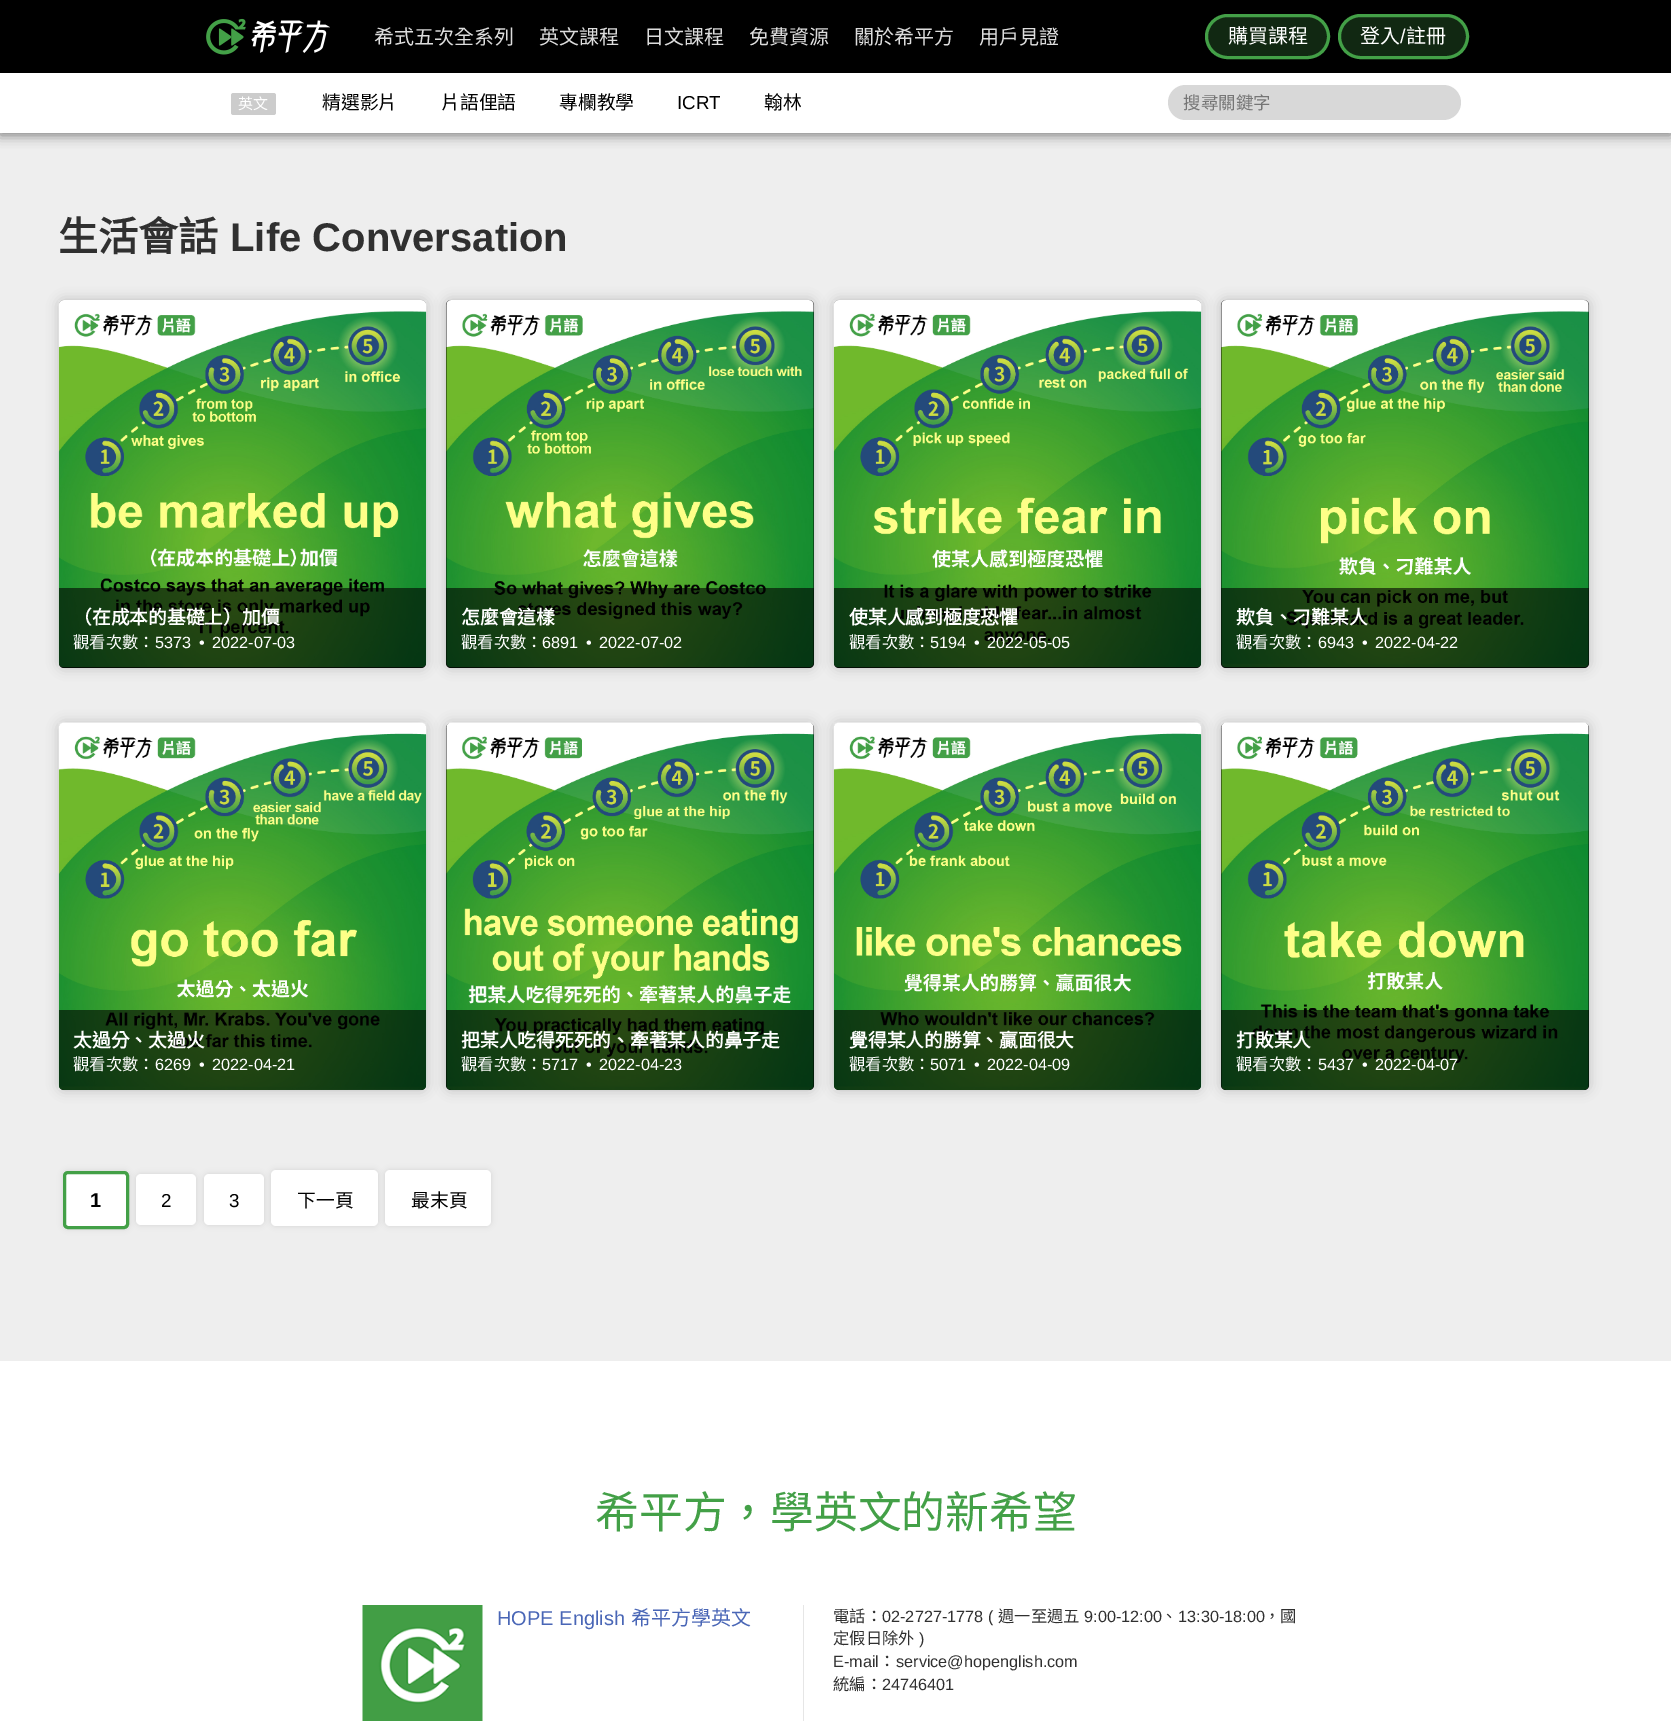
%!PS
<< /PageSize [1671 1721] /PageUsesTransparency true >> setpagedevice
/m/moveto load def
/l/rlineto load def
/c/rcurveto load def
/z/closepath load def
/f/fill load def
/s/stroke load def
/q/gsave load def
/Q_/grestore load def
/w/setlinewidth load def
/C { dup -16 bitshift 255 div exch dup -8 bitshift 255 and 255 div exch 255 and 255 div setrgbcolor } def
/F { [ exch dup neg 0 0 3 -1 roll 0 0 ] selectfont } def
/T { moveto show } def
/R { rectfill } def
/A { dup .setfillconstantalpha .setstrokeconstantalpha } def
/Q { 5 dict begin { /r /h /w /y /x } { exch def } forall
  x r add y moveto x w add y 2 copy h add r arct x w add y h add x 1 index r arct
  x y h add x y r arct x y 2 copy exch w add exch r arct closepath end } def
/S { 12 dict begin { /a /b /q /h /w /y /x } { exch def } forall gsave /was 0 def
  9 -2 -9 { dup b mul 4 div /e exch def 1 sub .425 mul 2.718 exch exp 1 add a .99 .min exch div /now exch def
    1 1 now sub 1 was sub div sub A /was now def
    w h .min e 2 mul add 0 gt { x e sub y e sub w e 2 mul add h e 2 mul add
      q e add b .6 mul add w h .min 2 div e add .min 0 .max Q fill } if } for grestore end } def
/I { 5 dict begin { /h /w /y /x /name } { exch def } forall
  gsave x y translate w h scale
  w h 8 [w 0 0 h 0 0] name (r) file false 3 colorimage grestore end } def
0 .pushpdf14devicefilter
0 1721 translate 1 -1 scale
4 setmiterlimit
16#FFFFFF C
0 0 1671 1721 R
16#000000 C
0 0 1671 73 R
(1.rgb) 206 18 124 37 I
/NotoSansCJKTC-Regular 20 F
16#DDDDDD C
(希式五次全系列) 374 44 T
(英文課程) 539 44 T
(日文課程) 644 44 T
(免費資源) 749 44 T
(關於希平方) 854 44 T
(用戶見證) 979 44 T
16#112812 C
1206.5 15.5 122 42 21 Q q f Q_
16#43A047 C
3 w
s
16#FFFFFF C
(購買課程) 1228 43 T
16#112812 C
1339.5 15.5 128 42 21 Q q f Q_
16#43A047 C
s
16#FFFFFF C
(登入) 1360 43 T
/LiberationSans-Regular 20 F
(/) 1400 43 T
/NotoSansCJKTC-Regular 20 F
(註冊) 1406 43 T
16#EEEEEE C
0 133 1671 1228 R
16#000000 C
0 75 1671 60 0 6 .5 S
16#FFFFFF C
0 73 1671 60 R
16#CCCCCC C
231 93 45 22 2.5 Q f
/NotoSansCJKTC-Regular 15 F
16#FFFFFF C
(英文) 238 109 T
/NotoSansCJKTC-Regular 18.75 F
16#000000 C
(精選影片) 322 109 T
(片語俚語) 441 109 T
(專欄教學) 559 109 T
/LiberationSans-Regular 18.75 F
(ICRT) 677 109 T
/NotoSansCJKTC-Regular 18.75 F
(翰林) 764 109 T
16#D8D8D8 C
1168 85 293 35 17.5 Q f
/NotoSansCJKTC-Regular 17.5 F
16#757575 C
(搜尋關鍵字) 1183 109 T
/NotoSansCJKTC-Bold 40 F
16#303030 C
(生活會話) 58 251 T
/LiberationSans-Bold 40 F
(Life Conversation) 230 251 T
16#000000 C
59 300 367 368 5 6 .2 S
59 300 367 368 5 Q f
(2.rgb) 58 300 369 368 I
0.6 A
59 588 m 367 0 l 0 75 l 0 3 -2 5 -5 5 c -357 0 l -3 0 -5 -2 -5 -5 c z f
/NotoSansCJKTC-Bold 18.75 F
1 A
16#FFFFFF C
(（在成本的基礎上）加價) 73 624 T
/NotoSansCJKTC-Regular 16.25 F
(觀看次數：) 73 648 T
/LiberationSans-Regular 16.25 F
(5373  •  2022-07-03) 155 648 T
16#000000 C
446 300 368 368 5 6 .2 S
446 300 368 368 5 Q f
(3.rgb) 446 300 368 368 I
0.6 A
446 588 m 368 0 l 0 75 l 0 3 -2 5 -5 5 c -358 0 l -3 0 -5 -2 -5 -5 c z f
/NotoSansCJKTC-Bold 18.75 F
1 A
16#FFFFFF C
(怎麼會這樣) 461 624 T
/NotoSansCJKTC-Regular 16.25 F
(觀看次數：) 461 648 T
/LiberationSans-Regular 16.25 F
(6891  •  2022-07-02) 542 648 T
16#000000 C
834 300 367 368 5 6 .2 S
834 300 367 368 5 Q f
(4.rgb) 833 300 369 368 I
0.6 A
834 588 m 367 0 l 0 75 l 0 3 -2 5 -5 5 c -357 0 l -3 0 -5 -2 -5 -5 c z f
/NotoSansCJKTC-Bold 18.75 F
1 A
16#FFFFFF C
(使某人感到極度恐懼) 849 624 T
/NotoSansCJKTC-Regular 16.25 F
(觀看次數：) 849 648 T
/LiberationSans-Regular 16.25 F
(5194  •  2022-05-05) 930 648 T
16#000000 C
1221 300 368 368 5 6 .2 S
1221 300 368 368 5 Q f
(5.rgb) 1221 300 368 368 I
0.6 A
1221 588 m 368 0 l 0 75 l 0 3 -2 5 -5 5 c -358 0 l -3 0 -5 -2 -5 -5 c z f
/NotoSansCJKTC-Bold 18.75 F
1 A
16#FFFFFF C
(欺負、刁難某人) 1236 624 T
/NotoSansCJKTC-Regular 16.25 F
(觀看次數：) 1236 648 T
/LiberationSans-Regular 16.25 F
(6943  •  2022-04-22) 1318 648 T
16#000000 C
59 723 367 367 5 6 .2 S
(6.rgb) 58 722 369 368 I
0.6 A
59 1010 m 367 0 l 0 75 l 0 3 -2 5 -5 5 c -357 0 l -3 0 -5 -2 -5 -5 c z f
/NotoSansCJKTC-Bold 18.75 F
1 A
16#FFFFFF C
(太過分、太過火) 73 1047 T
/NotoSansCJKTC-Regular 16.25 F
(觀看次數：) 73 1070 T
/LiberationSans-Regular 16.25 F
(6269  •  2022-04-21) 155 1070 T
16#000000 C
446 723 368 367 5 6 .2 S
446 723 368 367 5 Q f
(7.rgb) 446 722 368 368 I
0.6 A
446 1010 m 368 0 l 0 75 l 0 3 -2 5 -5 5 c -358 0 l -3 0 -5 -2 -5 -5 c z f
/NotoSansCJKTC-Bold 18.75 F
1 A
16#FFFFFF C
(把某人吃得死死的、牽著某人的鼻子走) 461 1047 T
/NotoSansCJKTC-Regular 16.25 F
(觀看次數：) 461 1070 T
/LiberationSans-Regular 16.25 F
(5717  •  2022-04-23) 542 1070 T
16#000000 C
834 723 367 367 5 6 .2 S
(8.rgb) 833 722 369 368 I
0.6 A
834 1010 m 367 0 l 0 75 l 0 3 -2 5 -5 5 c -357 0 l -3 0 -5 -2 -5 -5 c z f
/NotoSansCJKTC-Bold 18.75 F
1 A
16#FFFFFF C
(覺得某人的勝算、贏面很大) 849 1047 T
/NotoSansCJKTC-Regular 16.25 F
(觀看次數：) 849 1070 T
/LiberationSans-Regular 16.25 F
(5071  •  2022-04-09) 930 1070 T
16#000000 C
1221 723 368 367 5 6 .2 S
1221 723 368 367 5 Q f
(9.rgb) 1221 722 368 368 I
0.6 A
1221 1010 m 368 0 l 0 75 l 0 3 -2 5 -5 5 c -358 0 l -3 0 -5 -2 -5 -5 c z f
/NotoSansCJKTC-Bold 18.75 F
1 A
16#FFFFFF C
(打敗某人) 1236 1047 T
/NotoSansCJKTC-Regular 16.25 F
(觀看次數：) 1236 1070 T
/LiberationSans-Regular 16.25 F
(5437  •  2022-04-07) 1318 1070 T
16#000000 C
63 1171 66 58 5 3 .1 S
16#FFFFFF C
64.5 1172.5 63 55 3.5 Q q f Q_
16#43A047 C
s
/LiberationSans-Bold 20 F
16#000000 C
(1) 90 1207 T
136 1174 60 51 5 3 .1 S
16#FFFFFF C
136 1174 60 51 5 Q f
/LiberationSans-Regular 18.75 F
16#000000 C
(2) 161 1207 T
204 1174 60 51 5 3 .1 S
16#FFFFFF C
204 1174 60 51 5 Q f
16#000000 C
(3) 229 1207 T
271 1170 107 56 5 3 .1 S
16#FFFFFF C
271 1170 107 56 5 Q f
/NotoSansCJKTC-Regular 18.75 F
16#000000 C
(下一頁) 297 1207 T
385 1170 106 56 5 3 .1 S
16#FFFFFF C
385 1170 106 56 5 Q f
16#000000 C
(最末頁) 411 1207 T
/NotoSansCJKTC-Regular 43.75 F
16#43A047 C
(希平方，學英文的新希望) 595 1528 T
(10.rgb) 362 1605 121 116 I
/LiberationSans-Regular 20 F
16#4966B6 C
(HOPE English) 497 1625 T
/NotoSansCJKTC-Regular 20 F
(希平方學英文) 631 1625 T
16#E6E6E6 C
803 1605 1 116 R
/NotoSansCJKTC-Regular 16.25 F
16#303030 C
(電話：) 833 1622 T
/LiberationSans-Regular 16.25 F
(02-2727-1778 \() 882 1622 T
/NotoSansCJKTC-Regular 16.25 F
(週一至週五) 998 1622 T
/LiberationSans-Regular 16.25 F
(9:00-12:00) 1084 1622 T
/NotoSansCJKTC-Regular 16.25 F
(、) 1161 1622 T
/LiberationSans-Regular 16.25 F
(13:30-18:00) 1178 1622 T
/NotoSansCJKTC-Regular 16.25 F
(，國) 1264 1622 T
(定假日除外) 833 1644 T
/LiberationSans-Regular 16.25 F
(\)) 919 1644 T
(E-mail) 833 1667 T
/NotoSansCJKTC-Regular 16.25 F
(：) 879 1667 T
/LiberationSans-Regular 16.25 F
(service@hopenglish.com) 896 1667 T
/NotoSansCJKTC-Regular 16.25 F
(統編：) 833 1690 T
/LiberationSans-Regular 16.25 F
(24746401) 882 1690 T
.poppdf14devicefilter showpage
